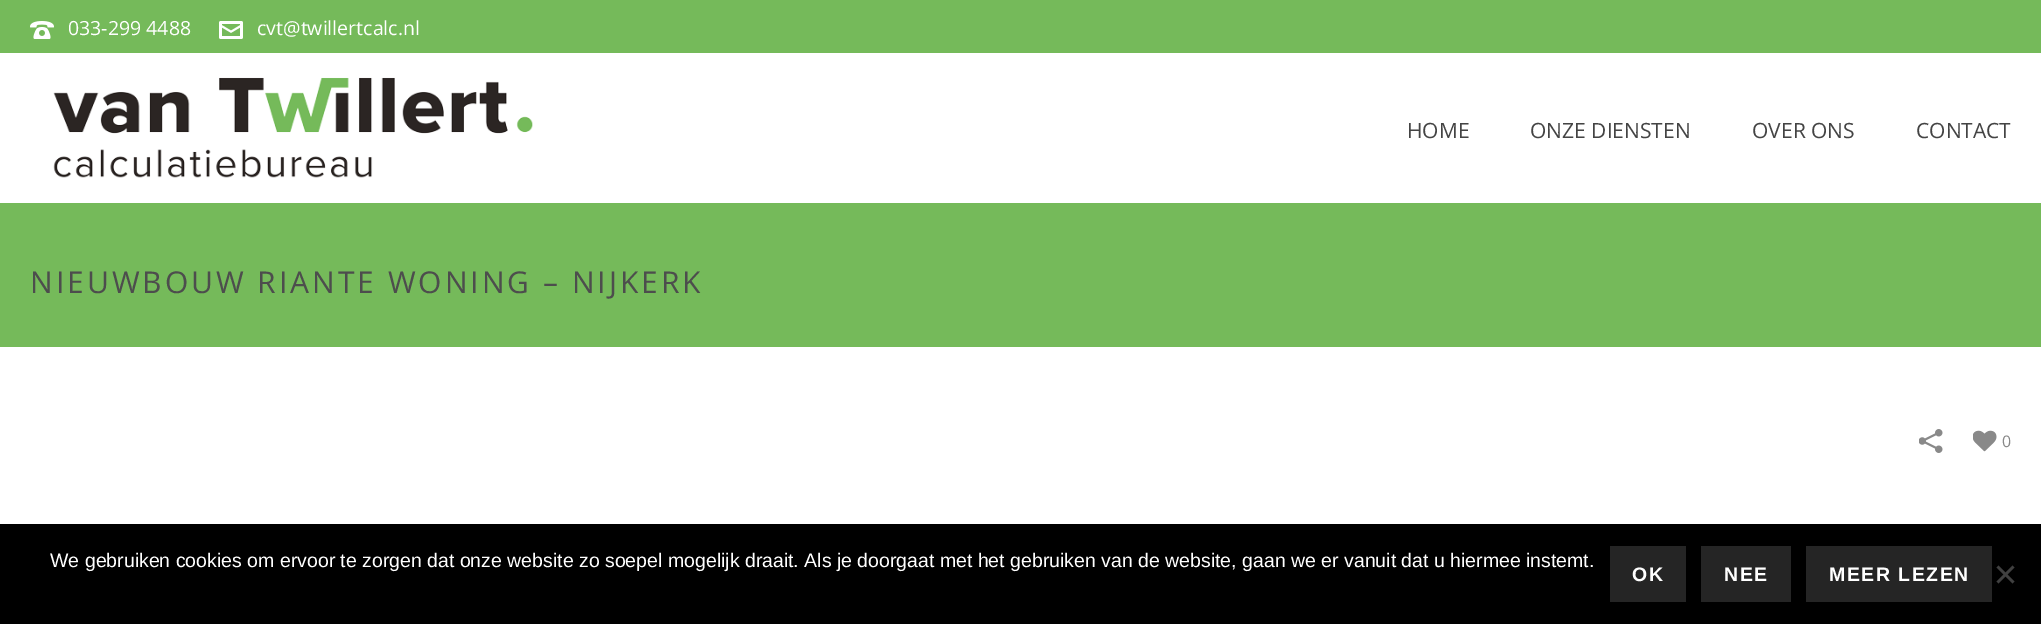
%!PS
<< /PageSize [2041 624] >> setpagedevice
/m/moveto load def
/l/rlineto load def
/z/closepath load def
/f/fill load def
/C { dup -16 bitshift 255 div exch dup -8 bitshift 255 and 255 div exch 255 and 255 div setrgbcolor } def
/F { [ exch dup neg 0 0 3 -1 roll 0 0 ] selectfont } def
/T { moveto show } def
/R { rectfill } def
/I { 5 dict begin { /h /w /y /x /name } { exch def } forall
  gsave x y translate w h scale
  w h 8 [w 0 0 h 0 0] name (r) file false 3 colorimage grestore end } def
0 624 translate 1 -1 scale
4 setmiterlimit
16#FFFFFF C
0 0 2041 624 R
16#75BA5A C
0 0 2041 347 R
(1.rgb) 30 21 24 18 I
/OpenSans-Regular 19.5 F
16#FFFFFF C
(033-299 4488) 68 35 T
(2.rgb) 219 21 24 18 I
(cvt@twillertcalc.nl) 257 35 T
0 53 2041 150 R
(3.rgb) 53 77 480 101 I
/OpenSans-Regular 21 F
16#444444 C
(HOME) 1407 138 T
(ONZE DIENSTEN) 1530 138 T
(OVER ONS) 1752 138 T
(CONTACT) 1916 138 T
/OpenSans-Regular 30 F
16#4D4D4D C
30 293 m 3 0 (NIEUWBOUW RIANTE WONING – NIJKERK) ashow
(4.rgb) 1919 429 24 24 I
(5.rgb) 1973 430 24 22 I
/OpenSans-Regular 16 F
16#898989 C
(0) 2002 447 T
16#000000 C
0 524 2041 100 R
/LiberationSans-Regular 19.5 F
16#FFFFFF C
(We gebruiken cookies om ervoor te zorgen dat onze website zo soepel mogelijk draait. Als je doorgaat met het gebruiken van de website, gaan we er vanuit dat u hiermee instemt.) 50 567 T
16#252525 C
1610 546 76 56 R
/LiberationSans-Bold 19.5 F
16#FFFFFF C
1632 581 m 1.5 0 (OK) ashow
16#252525 C
1701 546 90 56 R
16#FFFFFF C
1724 581 m 1.5 0 (NEE) ashow
16#252525 C
1806 546 186 56 R
16#FFFFFF C
1829 581 m 1.5 0 (MEER LEZEN) ashow
16#404040 C
2012.5 565.5 m 2 2 l -16 16 l -2 -2 l z f
1996.5 567.5 m 2 -2 l 16 16 l -2 2 l z f
showpage
